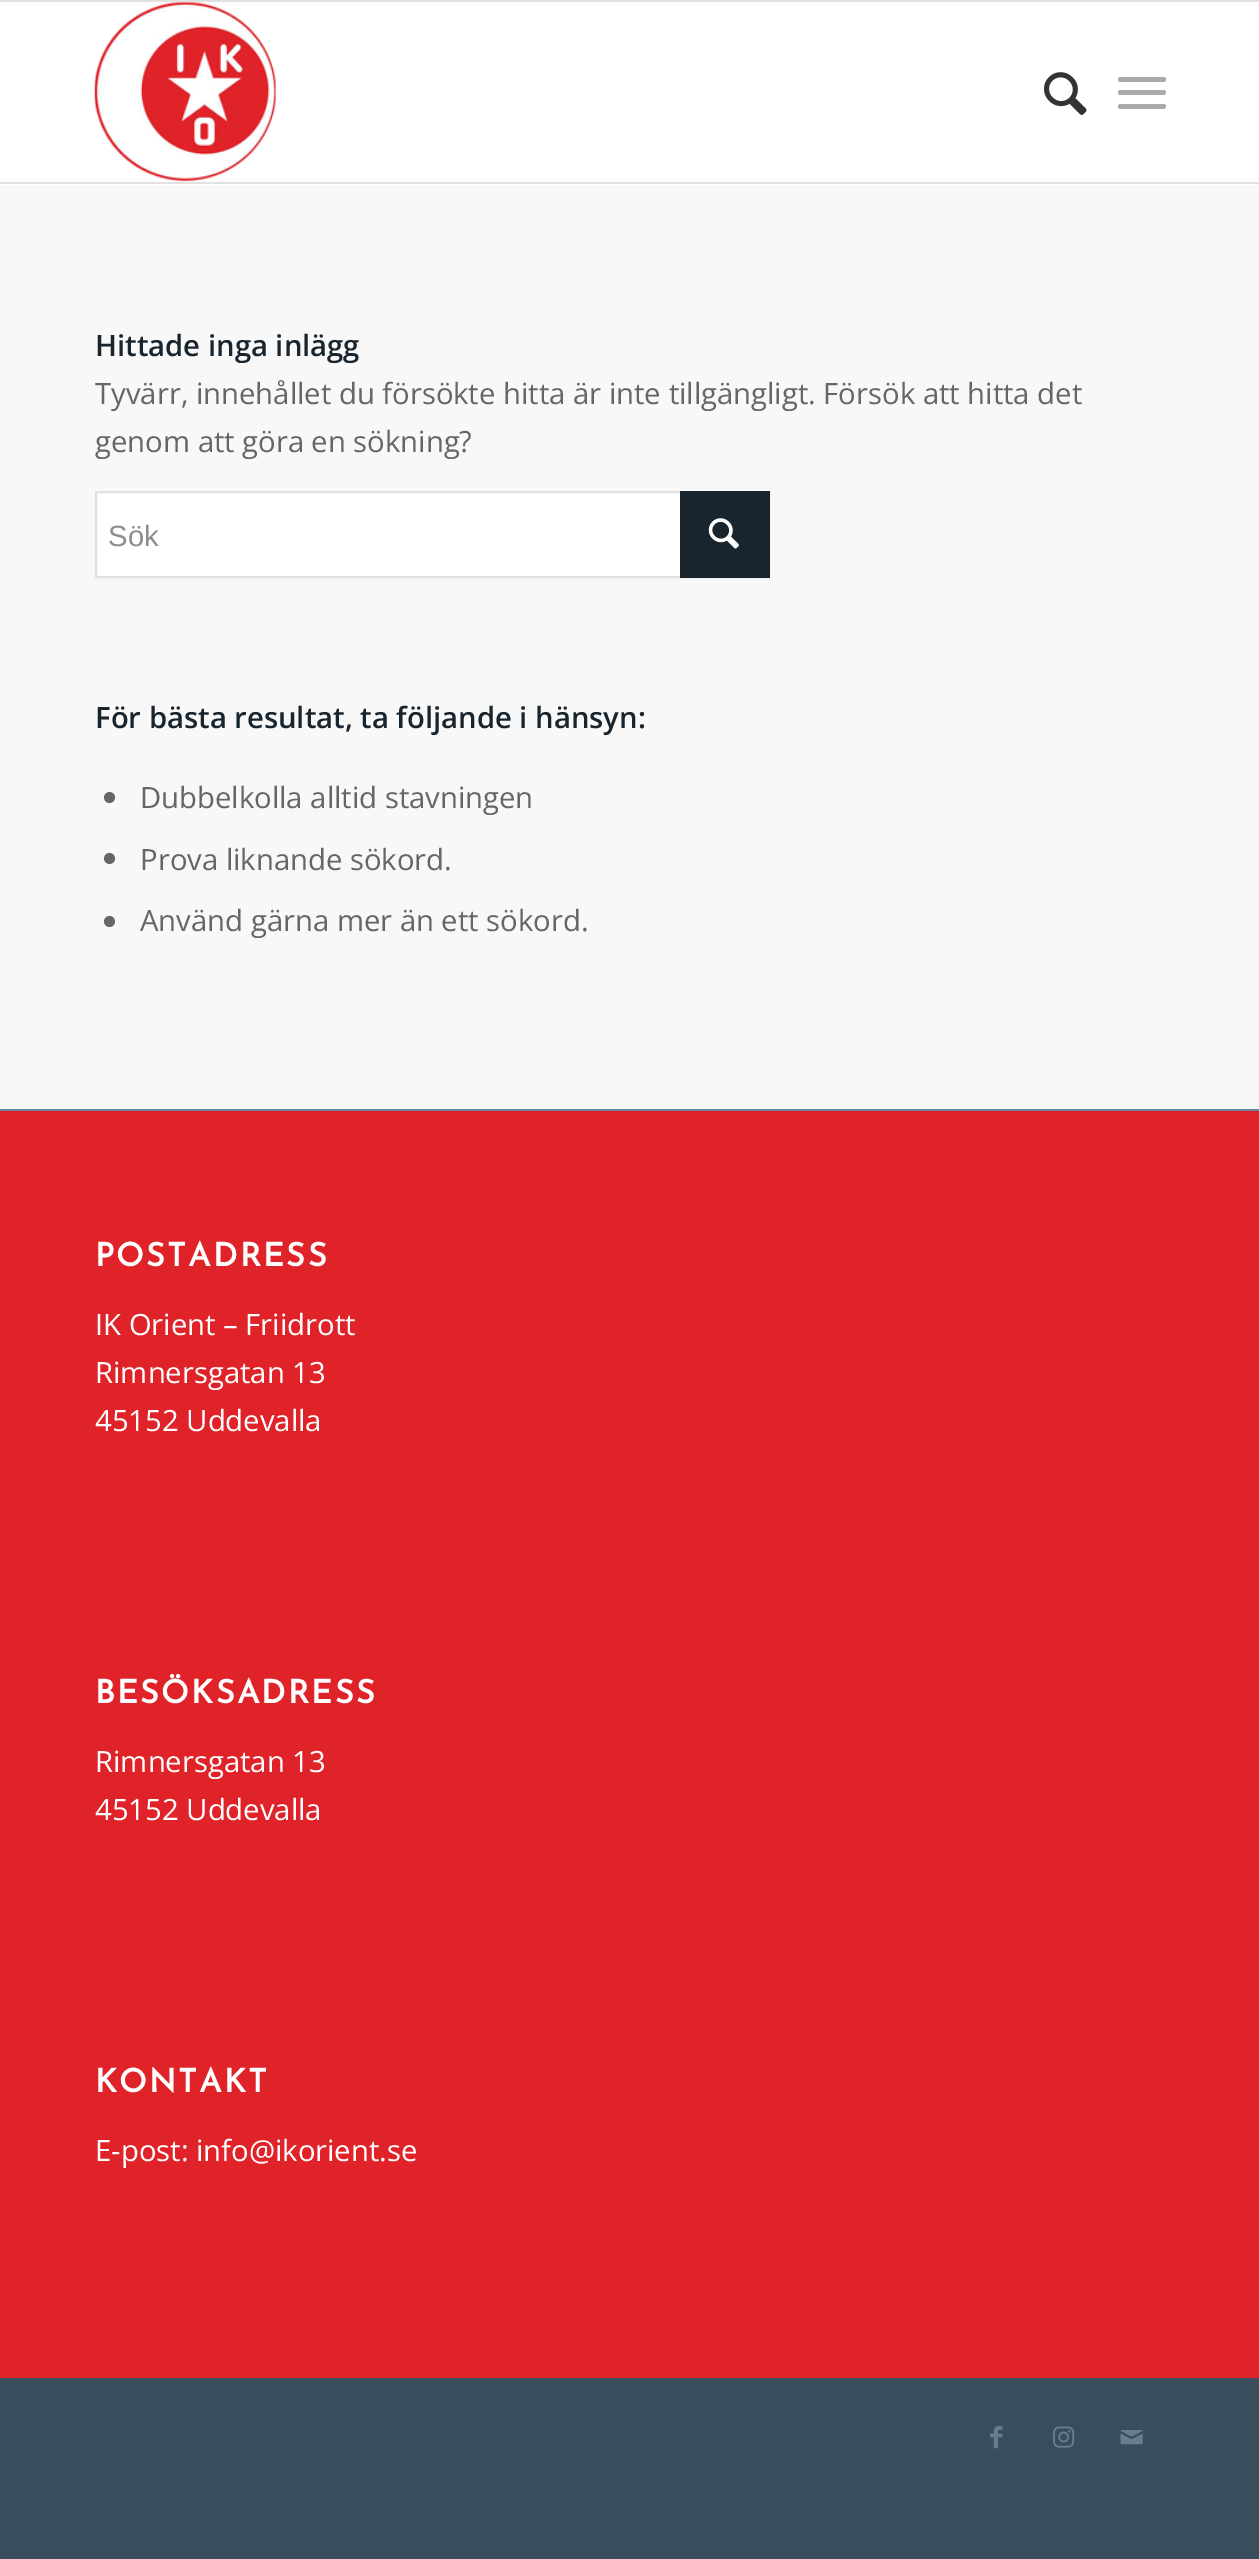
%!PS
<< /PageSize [1259 2559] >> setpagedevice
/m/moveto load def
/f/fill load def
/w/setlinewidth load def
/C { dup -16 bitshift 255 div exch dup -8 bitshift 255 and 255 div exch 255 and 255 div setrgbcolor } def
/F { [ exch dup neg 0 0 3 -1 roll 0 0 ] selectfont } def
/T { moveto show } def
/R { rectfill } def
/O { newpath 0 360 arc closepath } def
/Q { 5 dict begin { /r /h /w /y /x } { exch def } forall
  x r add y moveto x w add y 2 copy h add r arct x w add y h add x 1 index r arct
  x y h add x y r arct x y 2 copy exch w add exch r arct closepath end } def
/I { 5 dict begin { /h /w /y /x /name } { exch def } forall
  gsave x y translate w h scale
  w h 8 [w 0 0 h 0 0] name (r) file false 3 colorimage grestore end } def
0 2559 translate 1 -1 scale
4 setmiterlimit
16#3A4D5C C
0 0 1259 2559 R
16#E1E1E1 C
0 0 1259 2 R
16#FFFFFF C
0 2 1259 183 R
16#E1E1E1 C
0 182 1259 2 R
(1.rgb) 94 2 182 180 I
(2.rgb) 1044 72 43 43 I
16#AAAAAA C
1118 90 48 5 2.5 Q f
1118 77 48 5 2.5 Q f
1118 104 48 5 2.5 Q f
16#F8F8F8 C
0 185 1259 924 R
/OpenSans-SemiBold 29.25 F
16#18242E C
(Hittade inga inlägg) 95 356 T
/OpenSans-Regular 29.25 F
16#666666 C
(Tyvärr, innehållet du försökte hitta är inte tillgängligt. Försök att hitta det) 95 404 T
(genom att göra en sökning?) 95 452 T
16#FFFFFF C
97 493 583 83 R
16#E1E1E1 C
2 w
96 492 673 85 rectstroke
/LiberationSans-Regular 29.25 F
16#8D8D8D C
(Sök) 108 546 T
16#18242E C
680 491 90 87 R
(3.rgb) 708 518 31 31 I
/OpenSans-SemiBold 29.25 F
(För bästa resultat, ta följande i hänsyn:) 95 728 T
16#666666 C
109.5 797.5 5.5 O f
/OpenSans-Regular 29.25 F
(Dubbelkolla alltid stavningen) 140 808 T
109.5 858.5 5.5 O f
(Prova liknande sökord.) 140 870 T
109.5 921.5 5.5 O f
(Använd gärna mer än ett sökord.) 140 931 T
16#E02329 C
0 1111 1259 1267 R
16#6786A1 C
0 1109 1259 2 R
/JosefinSans-Bold 32.25 F
16#FFFFFF C
95 1266 m 2.25 0 (POSTADRESS) ashow
/OpenSans-Regular 29.25 F
(IK Orient – Friidrott) 95 1335 T
(Rimnersgatan 13) 95 1383 T
(45152 Uddevalla) 95 1431 T
/JosefinSans-Bold 32.25 F
95 1703 m 2.25 0 (BESÖKSADRESS) ashow
/OpenSans-Regular 29.25 F
(Rimnersgatan 13) 95 1772 T
(45152 Uddevalla) 95 1820 T
/JosefinSans-Bold 32.25 F
95 2092 m 2.25 0 (KONTAKT) ashow
/OpenSans-Regular 29.25 F
(E-post: info@ikorient.se) 95 2161 T
(4.rgb) 990 2426 13 23 I
(5.rgb) 1053 2426 22 22 I
(6.rgb) 1120 2430 23 15 I
showpage
